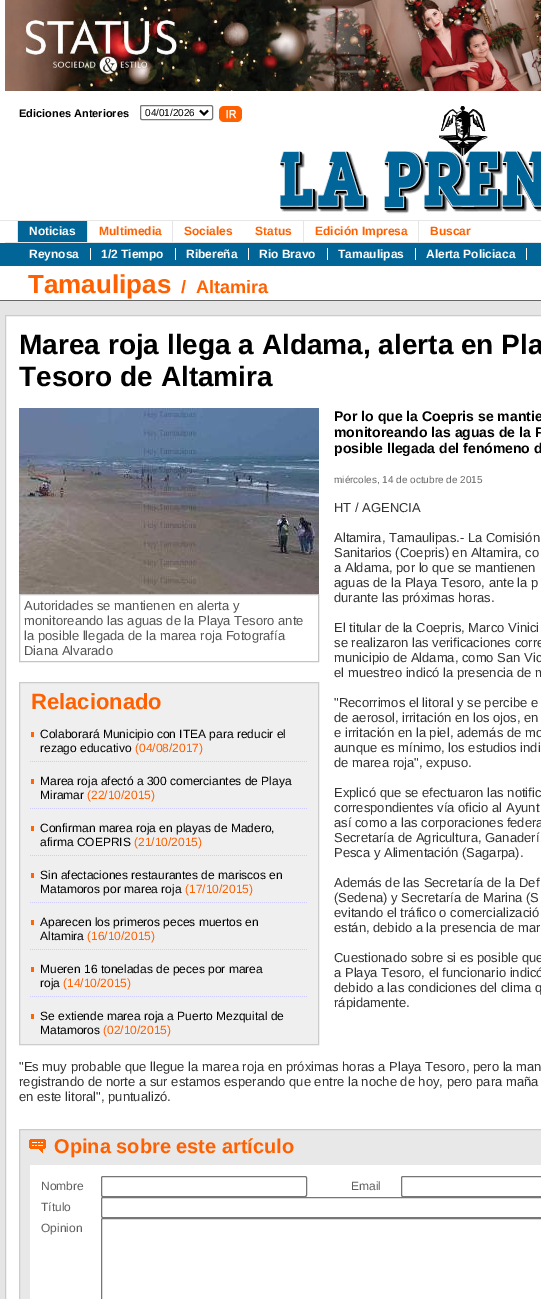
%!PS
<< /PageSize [541 1299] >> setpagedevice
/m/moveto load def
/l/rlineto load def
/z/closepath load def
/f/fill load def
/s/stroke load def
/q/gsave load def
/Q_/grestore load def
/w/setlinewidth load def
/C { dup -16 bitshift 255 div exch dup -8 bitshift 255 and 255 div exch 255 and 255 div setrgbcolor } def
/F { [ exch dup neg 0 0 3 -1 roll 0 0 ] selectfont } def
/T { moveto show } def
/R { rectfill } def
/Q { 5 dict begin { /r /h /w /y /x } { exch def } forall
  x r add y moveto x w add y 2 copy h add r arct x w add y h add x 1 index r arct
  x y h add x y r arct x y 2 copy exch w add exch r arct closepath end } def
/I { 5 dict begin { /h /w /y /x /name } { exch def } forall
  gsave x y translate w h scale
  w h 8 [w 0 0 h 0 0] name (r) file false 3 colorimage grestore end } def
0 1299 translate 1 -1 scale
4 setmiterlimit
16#E5E5E5 C
0 0 541 1299 R
(1.rgb) 0 0 5 301 I
16#FFFFFF C
5 91 536 151 R
(2.rgb) 5 0 536 91 I
/LiberationSans-Bold 11 F
16#000000 C
(Ediciones Anteriores) 19 117 T
16#767676 C
140.5 105.5 72 14 1.5 Q s
16#000000 C
2 w
200 110.5 m 4 4 l 4 -4 l s
/LiberationSans-Regular 10 F
(04/01/2026) 145 116 T
(3.rgb) 219 106 23 16 I
(4.rgb) 280 106 261 108 I
16#E6E6E6 C
5 220 536 1 R
17 221 1 21 R
16#016597 C
18 221 69 21 R
/LiberationSans-Bold 12 F
16#FFFFFF C
(Noticias) 29 235 T
16#016597 C
5 243 536 23 R
16#FFFFFF C
(Reynosa) 29 258 T
90 248 1 12 R
(1/2 Tiempo) 101 258 T
175 248 1 12 R
(Ribereña) 186 258 T
248 248 1 12 R
(Rio Bravo) 259 258 T
327 248 1 12 R
(Tamaulipas) 338 258 T
415 248 1 12 R
(Alerta Policiaca) 426 258 T
526 248 1 12 R
16#E6E6E6 C
87 221 1 21 R
16#FF6000 C
(Multimedia) 99 235 T
16#E6E6E6 C
172 221 1 21 R
16#FF6000 C
(Sociales) 184 235 T
(Status) 255 235 T
16#E6E6E6 C
303 221 1 21 R
16#FF6000 C
(Edición Impresa) 315 235 T
16#E6E6E6 C
418 221 1 21 R
16#FF6000 C
(Buscar) 430 235 T
16#FFFFFF C
5 266 536 34 R
16#666666 C
5 300 536 1 R
/LiberationSans-Bold 26 F
16#FF6000 C
(Tamaulipas) 28 293 T
/LiberationSans-Bold 18 F
(/) 181 293 T
(Altamira) 196 293 T
16#FFFFFF C
5.5 315.5 m 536 0 l 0 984 l -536 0 l z q f Q_
16#CCCCCC C
1 w
s
/LiberationSans-Bold 28 F
16#000000 C
(Marea roja llega a Aldama, alerta en Pla) 19 354 T
(Tesoro de Altamira) 19 386 T
/LiberationSans-Bold 14 F
(Por lo que la Coepris se mantie) 334 421 T
(monitoreando las aguas de la P) 334 437 T
(posible llegada del fenómeno d) 334 453 T
/LiberationSans-Regular 10 F
16#666666 C
(miércoles, 14 de octubre de 2015) 334 483 T
/LiberationSans-Regular 13 F
16#333333 C
(HT / AGENCIA) 334 512 T
(Altamira, Tamaulipas.- La Comisión) 334 542 T
(Sanitarios \(Coepris\) en Altamira, co) 334 557 T
(a Aldama, por lo que se mantienen) 334 572 T
(aguas de la Playa Tesoro, ante la p) 334 587 T
(durante las próximas horas.) 334 602 T
(5.rgb) 19 408 300 186 I
16#C5C5C5 C
19.5 594.5 299 67 rectstroke
16#555555 C
(Autoridades se mantienen en alerta y) 24 610 T
(monitoreando las aguas de la Playa Tesoro ante) 24 625 T
(la posible llegada de la marea roja Fotografía) 24 640 T
(Diana Alvarado) 24 655 T
16#333333 C
(El titular de la Coepris, Marco Vinici) 334 632 T
(se realizaron las verificaciones corre) 334 647 T
(municipio de Aldama, como San Vic) 334 662 T
(el muestreo indicó la presencia de m) 334 677 T
16#EFEFEF C
19.5 682.5 m 299 0 l 0 362 l -299 0 l z q f Q_
16#CCCCCC C
s
/LiberationSans-Bold 22 F
16#FF6000 C
(Relacionado) 31 709 T
16#FF6600 C
31 732 3 5 R
/LiberationSans-Regular 12 F
16#000000 C
(Colaborará Municipio con ITEA para reducir el) 40 738 T
(rezago educativo) 40 752 T
16#FF6000 C
(\(04/08/2017\)) 135 752 T
(6.rgb) 30 761 277 1 I
16#FF6600 C
31 779 3 5 R
16#000000 C
(Marea roja afectó a 300 comerciantes de Playa) 40 785 T
(Miramar) 40 799 T
16#FF6000 C
(\(22/10/2015\)) 87 799 T
(6.rgb) 30 808 277 1 I
16#FF6600 C
31 826 3 5 R
16#000000 C
(Confirman marea roja en playas de Madero,) 40 832 T
(afirma COEPRIS) 40 846 T
16#FF6000 C
(\(21/10/2015\)) 134 846 T
(6.rgb) 30 855 277 1 I
16#FF6600 C
31 873 3 5 R
16#000000 C
(Sin afectaciones restaurantes de mariscos en) 40 879 T
(Matamoros por marea roja) 40 893 T
16#FF6000 C
(\(17/10/2015\)) 185 893 T
(6.rgb) 30 902 277 1 I
16#FF6600 C
31 920 3 5 R
16#000000 C
(Aparecen los primeros peces muertos en) 40 926 T
(Altamira) 40 940 T
16#FF6000 C
(\(16/10/2015\)) 87 940 T
(6.rgb) 30 949 277 1 I
16#FF6600 C
31 967 3 5 R
16#000000 C
(Mueren 16 toneladas de peces por marea) 40 973 T
(roja) 40 987 T
16#FF6000 C
(\(14/10/2015\)) 63 987 T
(6.rgb) 30 996 277 1 I
16#FF6600 C
31 1014 3 5 R
16#000000 C
(Se extiende marea roja a Puerto Mezquital de) 40 1020 T
(Matamoros) 40 1034 T
16#FF6000 C
(\(02/10/2015\)) 103 1034 T
/LiberationSans-Regular 13 F
16#333333 C
("Recorrimos el litoral y se percibe e) 334 707 T
(de aerosol, irritación en los ojos, en) 334 722 T
(e irritación en la piel, además de mo) 334 737 T
(aunque es mínimo, los estudios indi) 334 752 T
(de marea roja", expuso.) 334 767 T
(Explicó que se efectuaron las notific) 334 797 T
(correspondientes vía oficio al Ayunt) 334 812 T
(así como a las corporaciones federa) 334 827 T
(Secretaría de Agricultura, Ganaderí) 334 842 T
(Pesca y Alimentación \(Sagarpa\).) 334 857 T
(Además de las Secretaría de la Def) 334 887 T
(\(Sedena\) y Secretaría de Marina \(S) 334 902 T
(evitando el tráfico o comercializació) 334 917 T
(están, debido a la presencia de mar) 334 932 T
(Cuestionado sobre si es posible que) 334 962 T
(a Playa Tesoro, el funcionario indicó) 334 977 T
(debido a las condiciones del clima q) 334 992 T
(rápidamente.) 334 1007 T
("Es muy probable que llegue la marea roja en próximas horas a Playa Tesoro, pero la man) 19 1071 T
(registrando de norte a sur estamos esperando que entre la noche de hoy, pero para maña) 19 1086 T
(en este litoral", puntualizó.) 19 1101 T
16#E8E8E8 C
19.5 1129.5 m 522 0 l 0 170 l -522 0 l z q f Q_
16#CCCCCC C
s
(7.rgb) 29 1139 17 14 I
/LiberationSans-Bold 20 F
16#FF6000 C
(Opina sobre este artículo) 54 1153 T
16#FFFFFF C
30 1165 511 134 R
/LiberationSans-Regular 12 F
16#606060 C
(Nombre) 41 1190 T
16#767676 C
101.5 1176.5 205 20 1.5 Q s
16#606060 C
(Email) 351 1190 T
16#767676 C
401.5 1176.5 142 20 1.5 Q s
16#606060 C
(Título) 41 1211 T
16#767676 C
101.5 1197.5 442 20 1.5 Q s
16#606060 C
(Opinion) 41 1232 T
16#767676 C
101.5 1218.5 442 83 1.5 Q s
showpage
